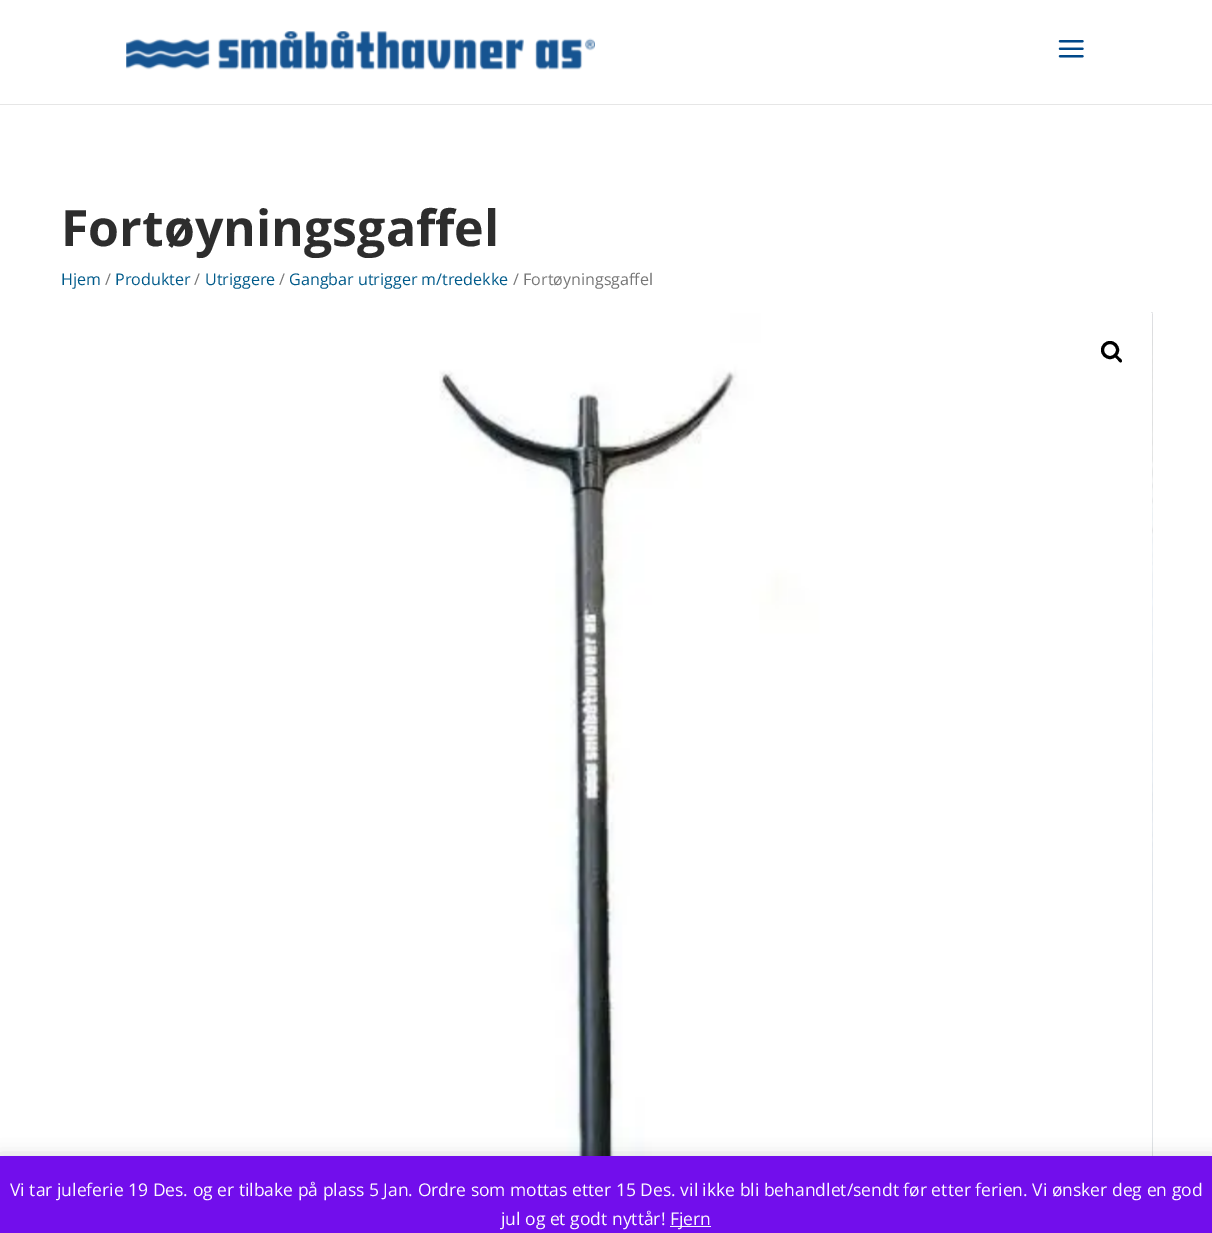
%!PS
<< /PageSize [1212 1233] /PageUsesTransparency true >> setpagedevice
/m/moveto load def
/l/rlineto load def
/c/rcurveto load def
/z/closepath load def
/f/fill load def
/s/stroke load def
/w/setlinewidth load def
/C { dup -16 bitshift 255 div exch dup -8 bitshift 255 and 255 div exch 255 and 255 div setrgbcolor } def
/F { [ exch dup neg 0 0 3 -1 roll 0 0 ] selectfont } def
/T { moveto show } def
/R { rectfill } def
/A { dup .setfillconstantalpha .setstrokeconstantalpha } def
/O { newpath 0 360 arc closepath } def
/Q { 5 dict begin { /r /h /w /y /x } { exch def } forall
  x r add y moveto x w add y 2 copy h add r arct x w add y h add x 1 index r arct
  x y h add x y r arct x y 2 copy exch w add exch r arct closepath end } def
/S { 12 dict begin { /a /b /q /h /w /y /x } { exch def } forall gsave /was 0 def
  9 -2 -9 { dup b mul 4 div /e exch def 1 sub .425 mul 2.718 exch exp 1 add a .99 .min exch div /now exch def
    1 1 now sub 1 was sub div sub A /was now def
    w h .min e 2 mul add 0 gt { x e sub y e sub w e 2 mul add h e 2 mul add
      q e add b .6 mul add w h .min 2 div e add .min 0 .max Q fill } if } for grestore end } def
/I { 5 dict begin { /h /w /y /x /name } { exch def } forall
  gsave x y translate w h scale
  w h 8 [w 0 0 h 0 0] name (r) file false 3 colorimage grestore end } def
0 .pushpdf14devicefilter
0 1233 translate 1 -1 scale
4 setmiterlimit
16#FFFFFF C
0 0 1212 1233 R
16#E6E6E6 C
0 104 m 0 1 l 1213 0 l 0 -104 l -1 0 l 0 103 l z f
(1.rgb) 126 31 469 39 I
(2.rgb) 1058 40 26 18 I
/OpenSans-Bold 50 F
16#2D2D2D C
(Fortøyningsgaffel) 61 246 T
/OpenSans-Regular 16.1 F
16#005A8A C
(Hjem) 61 285 T
16#767676 C
(/) 105 285 T
16#005A8A C
(Produkter) 115 285 T
16#767676 C
(/) 194 285 T
16#005A8A C
(Utriggere) 205 285 T
16#767676 C
(/) 279 285 T
16#005A8A C
(Gangbar utrigger m/tredekke) 289 285 T
16#767676 C
(/ Fortøyningsgaffel) 513 285 T
(3.rgb) 1151 312 2 844 I
(4.rgb) 439 313 714 843 I
16#000000 C
3 w
1110 350 7.5 O s
1114.5 355 m 1.5 -1.5 3.5 1.5 4.5 2.5 c 1 .5 4 3 2.5 4.5 c -1.5 1.5 -3.5 -2 -4.5 -3 c -.5 -.5 -4 -3 -2.5 -4 c z f
0 1158 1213 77 0 9 .2 S
16#720EEC C
0 1156 1212 77 R
/OpenSans-Regular 17.5 F
16#FCFBFE C
(Vi tar juleferie 19 Des. og er tilbake på plass 5 Jan. Ordre som mottas etter 15 Des. vil ikke bli behandlet/sendt før etter ferien. Vi ønsker deg en god) 10 1196 T
(jul og et godt nyttår!) 501 1225 T
670 1226 41 1 R
(Fjern) 670 1225 T
.poppdf14devicefilter showpage
